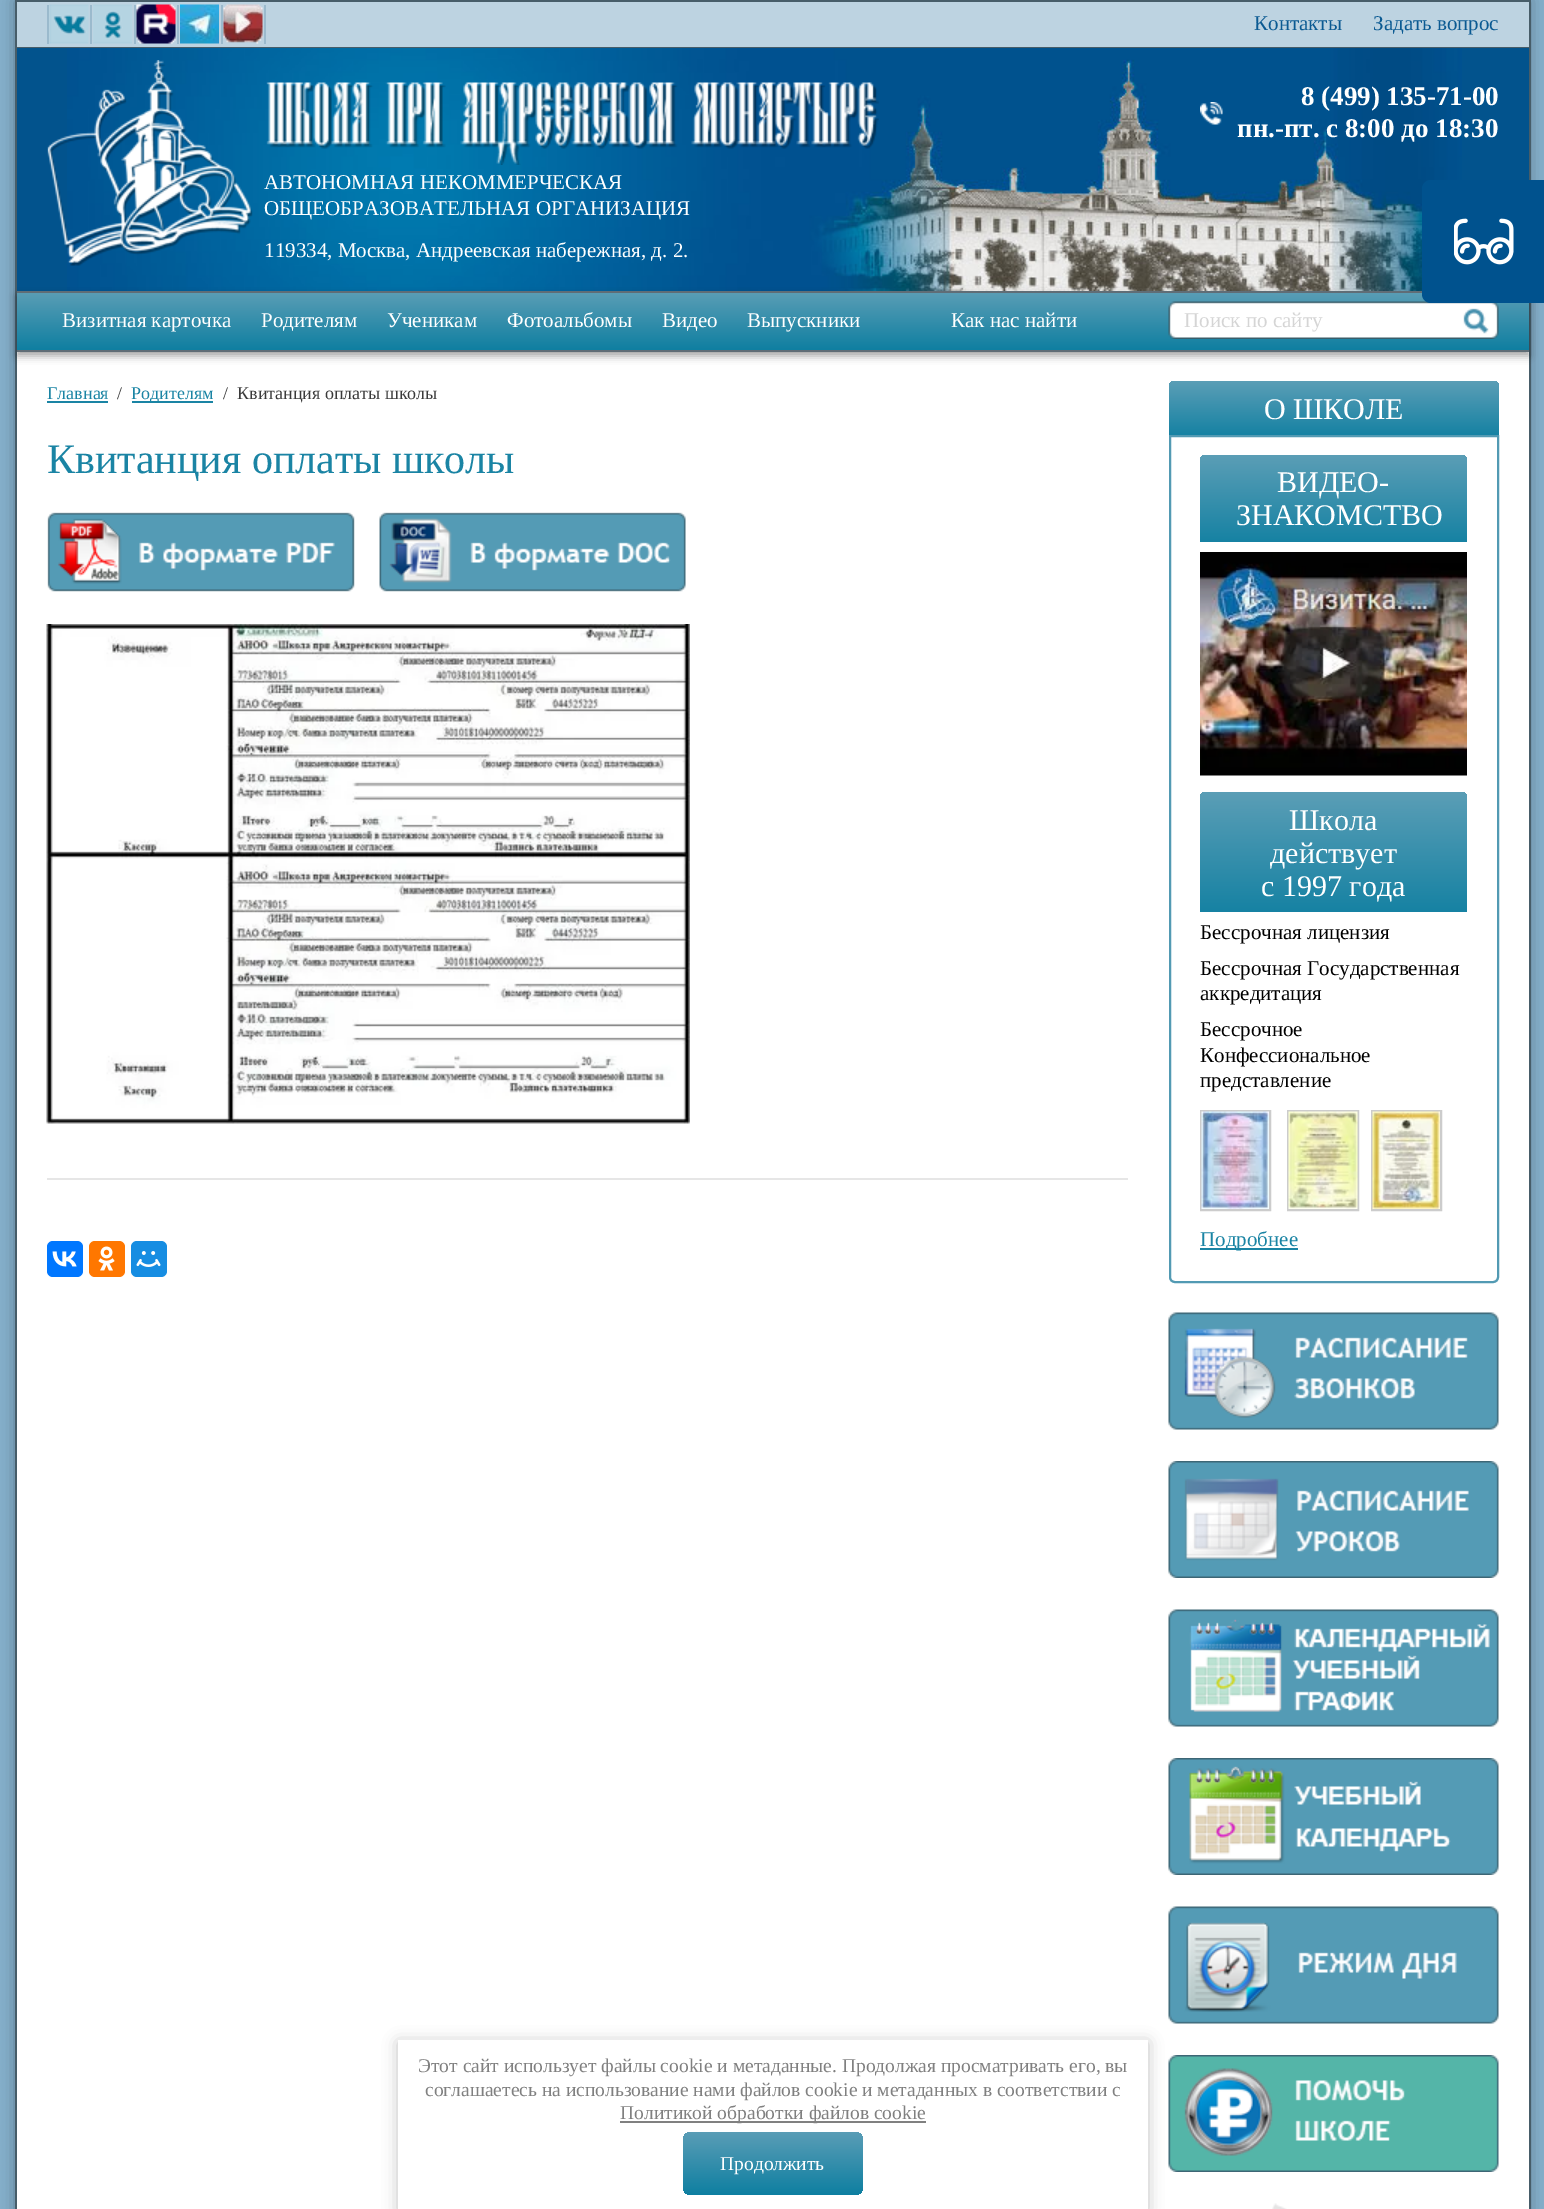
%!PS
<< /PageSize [1544 2209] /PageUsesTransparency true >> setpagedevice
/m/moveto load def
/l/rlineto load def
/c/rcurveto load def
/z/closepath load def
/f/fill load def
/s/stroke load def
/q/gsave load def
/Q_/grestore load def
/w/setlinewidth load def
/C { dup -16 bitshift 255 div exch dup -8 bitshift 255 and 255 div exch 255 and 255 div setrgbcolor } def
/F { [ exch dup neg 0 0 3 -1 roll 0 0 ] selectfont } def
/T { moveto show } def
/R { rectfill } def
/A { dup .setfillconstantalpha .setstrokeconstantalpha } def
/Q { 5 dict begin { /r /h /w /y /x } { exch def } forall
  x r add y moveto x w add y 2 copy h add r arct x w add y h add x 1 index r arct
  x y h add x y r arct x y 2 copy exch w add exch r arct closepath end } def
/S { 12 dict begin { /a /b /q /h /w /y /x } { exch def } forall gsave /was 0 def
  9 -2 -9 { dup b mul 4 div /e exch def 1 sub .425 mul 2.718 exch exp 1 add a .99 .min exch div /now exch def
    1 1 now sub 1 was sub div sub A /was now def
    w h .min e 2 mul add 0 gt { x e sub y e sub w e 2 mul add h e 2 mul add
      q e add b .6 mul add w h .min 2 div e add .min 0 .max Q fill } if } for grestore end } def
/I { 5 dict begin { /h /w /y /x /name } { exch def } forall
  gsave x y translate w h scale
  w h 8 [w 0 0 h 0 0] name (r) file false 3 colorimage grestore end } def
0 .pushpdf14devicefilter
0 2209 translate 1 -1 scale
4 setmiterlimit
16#85AFCB C
0 0 1544 2209 R
16#000000 C
15 0 1515 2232 0 7.5 .3 S
16#FFFFFF C
17 352 1512 1857 R
16#475D69 C
1529 0 2 2209 R
15 0 2 2209 R
16#BDD3E1 C
17 2 1512 45 R
16#475D69 C
17 0 1512 2 R
17 47 1512 1 R
16#9BBACD C
264 5 2 39 R
47 5 2 39 R
(1.rgb) 49 4 40 40 I
90 5 2 39 R
(2.rgb) 93 4 39 40 I
134 5 2 39 R
(3.rgb) 136 4 40 40 I
177 5 2 39 R
(4.rgb) 180 4 39 40 I
221 5 2 39 R
(5.rgb) 223 4 40 40 I
/LiberationSerif-Regular 21 F
16#0B5A92 C
(Контакты) 1254 30 T
(Задать вопрос) 1373 30 T
16#02538D C
17 48 1512 243 R
(6.rgb) 67 48 1395 243 I
(7.rgb) 47 60 206 206 I
(8.rgb) 266 82 613 83 I
(9.rgb) 1200 102 23 23 I
/LiberationSerif-Bold 27 F
16#FFFFFF C
(8 \(499\) 135-71-00) 1301 105 T
(пн.-пт. с 8:00 до 18:30) 1237 137 T
/LiberationSerif-Regular 21 F
(АВТОНОМНАЯ НЕКОММЕРЧЕСКАЯ) 264 189 T
(ОБЩЕОБРАЗОВАТЕЛЬНАЯ ОРГАНИЗАЦИЯ) 264 215 T
(119334, Москва, Андреевская набережная, д. 2.) 264 257 T
16#000000 C
17 296 1512 60 0 4 .35 S
q 17 293 m 1512 0 l 0 57 l -1512 0 l z clip newpath
<< /ShadingType 2 /ColorSpace /DeviceRGB /Coords [773 292 773 350] /Extend [true true] /Function << /FunctionType 2 /Domain [0 1] /C0 [.353 .616 .71] /C1 [.059 .498 .631] /N 1 >> >> shfill Q_
16#606D76 C
17 291 1405 2 R
17 350 1512 2 R
16#FFFFFF C
(Визитная карточка) 62 327 T
(Родителям) 261 327 T
(Ученикам) 387 327 T
(Фотоальбомы) 507 327 T
(Видео) 662 327 T
(Выпускники) 747 327 T
(Как нас найти) 951 327 T
(10.rgb) 1168 301 331 38 I
16#D5D5D5 C
(Поиск по сайту) 1184 327 T
/LiberationSerif-Regular 18 F
16#1A84A4 C
(Главная) 47 399 T
47 401 61 2 R
16#3A3A3A C
(/) 117 399 T
16#1A84A4 C
132 401 81 2 R
(Родителям) 131 399 T
16#3A3A3A C
(/  Квитанция оплаты школы) 223 399 T
/LiberationSerif-Regular 42 F
16#1A84A4 C
(Квитанция оплаты школы) 47 473 T
(11.rgb) 47 512 308 80 I
(12.rgb) 379 512 307 80 I
(13.rgb) 46 624 644 500 I
16#E6E6E6 C
47 1178 1081 2 R
16#0077FF C
47 1241 36 36 6 Q f
(14.rgb) 52 1251 25 16 I
16#FF7700 C
89 1241 36 36 6 Q f
(15.rgb) 98 1246 17 25 I
16#168DE2 C
131 1241 36 36 6 Q f
(16.rgb) 136 1251 25 16 I
q 1175 381 m 318 0 l 3.5 0 6 2.5 6 6 c 0 48 l -330 0 l 0 -48 l 0 -3.5 2.5 -6 6 -6 c z clip newpath
<< /ShadingType 2 /ColorSpace /DeviceRGB /Coords [1334 381 1334 435] /Extend [true true] /Function << /FunctionType 2 /Domain [0 1] /C0 [.357 .62 .714] /C1 [.086 .51 .639] /N 1 >> >> shfill Q_
/LiberationSerif-Regular 30 F
16#FFFFFF C
(О ШКОЛЕ) 1264 419 T
16#529AB3 C
2 w
1170 436 m 328 0 l 0 841 l 0 3 -2 5 -5 5 c -318 0 l -3 0 -5 -2 -5 -5 c z s
q 1206 455 m 255 0 l 3.5 0 6 2.5 6 6 c 0 81 l -267 0 l 0 -81 l 0 -3.5 2.5 -6 6 -6 c z clip newpath
<< /ShadingType 2 /ColorSpace /DeviceRGB /Coords [1334 455 1334 542] /Extend [true true] /Function << /FunctionType 2 /Domain [0 1] /C0 [.357 .62 .714] /C1 [.086 .51 .639] /N 1 >> >> shfill Q_
16#FFFFFF C
(ВИДЕО-) 1277 492 T
(ЗНАКОМСТВО) 1236 525 T
(17.rgb) 1200 552 267 224 I
q 1206 792 m 255 0 l 3.5 0 6 2.5 6 6 c 0 114 l -267 0 l 0 -114 l 0 -3.5 2.5 -6 6 -6 c z clip newpath
<< /ShadingType 2 /ColorSpace /DeviceRGB /Coords [1334 792 1334 912] /Extend [true true] /Function << /FunctionType 2 /Domain [0 1] /C0 [.357 .62 .714] /C1 [.086 .51 .639] /N 1 >> >> shfill Q_
(Школа) 1289 830 T
(действует) 1270 863 T
(с 1997 года) 1261 896 T
/LiberationSerif-Regular 21 F
16#000000 C
(Бессрочная лицензия) 1200 939 T
(Бессрочная Государственная) 1200 975 T
(аккредитация) 1200 1000 T
(Бессрочное) 1200 1036 T
(Конфессиональное) 1200 1062 T
(представление) 1200 1087 T
16#CCCCCC C
1201 1111 69 99 rectstroke
(18.rgb) 1201 1111 68 98 I
1288 1111 70 99 rectstroke
(19.rgb) 1288 1111 70 98 I
1372 1111 69 99 rectstroke
(20.rgb) 1372 1111 68 98 I
16#1A84A4 C
1200 1248 98 2 R
(Подробнее) 1200 1246 T
(21.rgb) 1168 1312 331 118 I
(22.rgb) 1168 1461 331 117 I
(23.rgb) 1168 1609 331 118 I
(24.rgb) 1168 1758 331 117 I
(25.rgb) 1168 1906 331 118 I
(26.rgb) 1168 2055 331 117 I
(27.rgb) 1272 2203 15 6 I
16#00528E C
1431 180 m 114 0 l 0 123 l -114 0 l -5 0 -9 -4 -9 -9 c 0 -105 l 0 -5 4 -9 9 -9 c z f
(28.rgb) 1454 218 60 47 I
16#000000 C
398 2042 750 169 0 7.5 .23 S
16#FFFFFF C
398 2040 750 169 R
/LiberationSerif-Regular 19.5 F
16#808080 C
(Этот сайт использует файлы cookie и метаданные. Продолжая просматривать его, вы) 418 2072 T
(соглашаетесь на использование нами файлов cookie и метаданных в соответствии с) 425 2096 T
620 2121 306 2 R
(Политикой обработки файлов cookie) 620 2119 T
q 683 2132 180 63 8 Q clip newpath
<< /ShadingType 2 /ColorSpace /DeviceRGB /Coords [773 2132 773 2195] /Extend [true true] /Function << /FunctionType 2 /Domain [0 1] /C0 [.353 .616 .714] /C1 [.055 .498 .631] /N 1 >> >> shfill Q_
16#FFFFFF C
(Продолжить) 720 2170 T
.poppdf14devicefilter showpage
